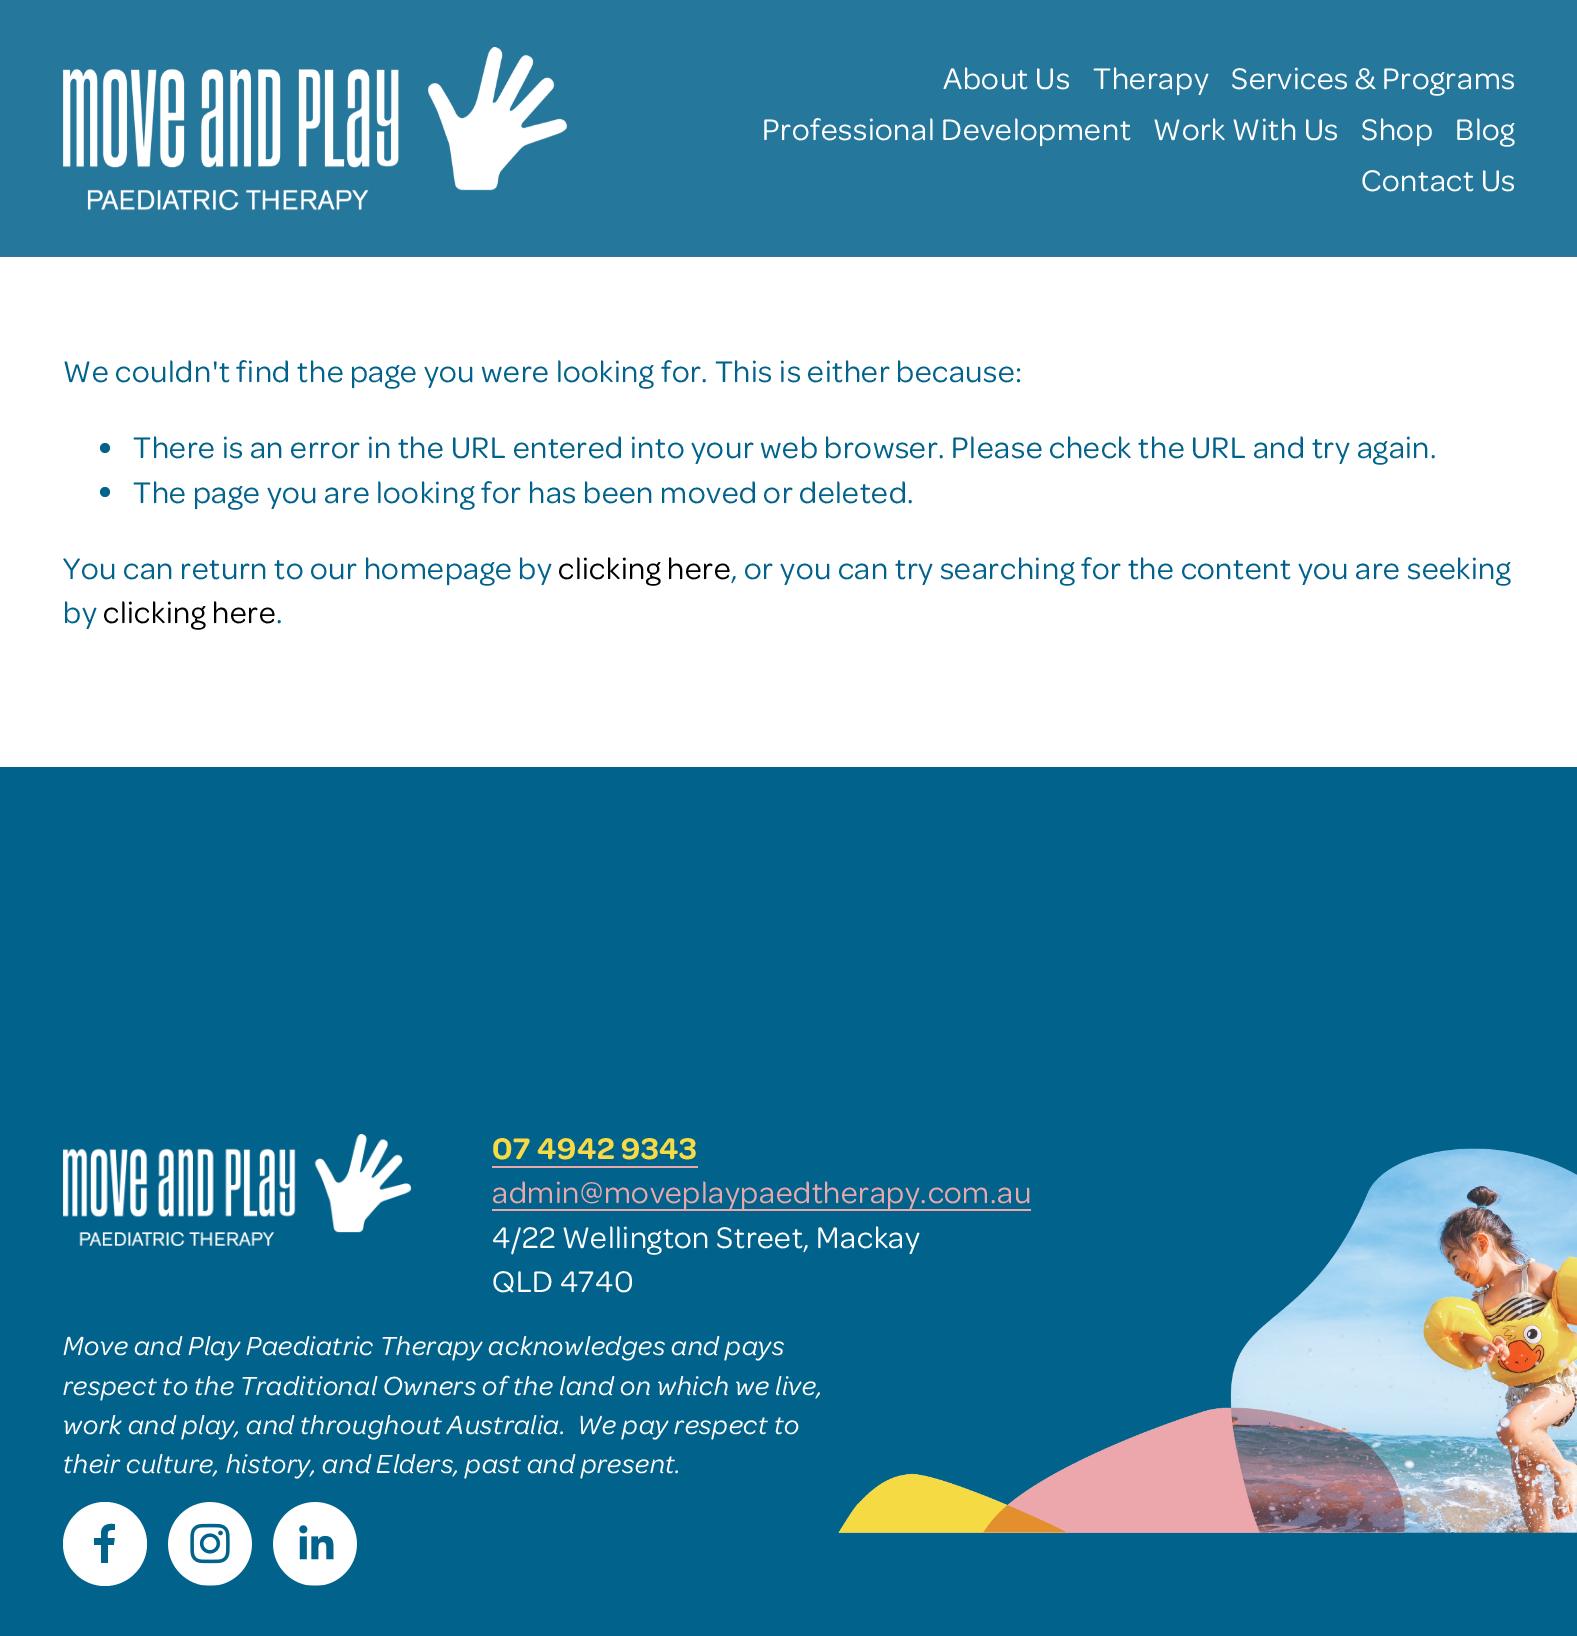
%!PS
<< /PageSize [1577 1636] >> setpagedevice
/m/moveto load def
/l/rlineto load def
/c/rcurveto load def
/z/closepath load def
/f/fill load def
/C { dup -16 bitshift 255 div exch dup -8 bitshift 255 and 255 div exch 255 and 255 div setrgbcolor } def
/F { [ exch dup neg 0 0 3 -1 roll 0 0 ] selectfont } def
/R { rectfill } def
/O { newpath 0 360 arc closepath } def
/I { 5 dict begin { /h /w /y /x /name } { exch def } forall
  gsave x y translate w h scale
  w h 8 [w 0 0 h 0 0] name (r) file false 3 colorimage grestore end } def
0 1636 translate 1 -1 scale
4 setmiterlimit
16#FFFFFF C
0 0 1577 1636 R
16#25789B C
0 0 1577 257 R
(1.rgb) 63 47 504 164 I
/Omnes-Regular 31.8 F
16#FFFFFF C
943 89 m .65 0 (About Us) ashow
1093 89 m .65 0 (Therapy) ashow
1231 89 m .65 0 (Services & Programs) ashow
762 140 m .65 0 (Professional Development) ashow
1153 140 m .65 0 (Work With Us) ashow
1361 140 m .65 0 (Shop) ashow
1455 140 m .65 0 (Blog) ashow
1361 191 m .65 0 (Contact Us) ashow
16#01628B C
63 382 m .65 0 (We couldn't find the page you were looking for. This is either because:) ashow
105 448 5 O f
133 458 m .65 0 (There is an error in the URL entered into your web browser. Please check the URL and try again.) ashow
105 492 5 O f
133 503 m .65 0 (The page you are looking for has been moved or deleted.) ashow
63 579 m .65 0 (You can return to our homepage by) ashow
16#000000 C
558 579 m .65 0 (clicking here) ashow
16#01628B C
731 579 m .65 0 (, or you can try searching for the content you are seeking) ashow
63 623 m .65 0 (by) ashow
16#000000 C
103 623 m .65 0 (clicking here) ashow
16#01628B C
276 623 m .65 0 (.) ashow
0 767 1577 869 R
(2.rgb) 63 1134 349 112 I
/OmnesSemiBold-SemiBold 31.8 F
16#F6DA46 C
492 1159 m .65 0 (07 4942 9343) ashow
16#EBA8AC C
492 1166 206 2 R
(3.rgb) 838 1148 739 385 I
492 1209 539 2 R
/Omnes-Regular 31.8 F
492 1203 m .65 0 (admin@moveplaypaedtherapy.com.au) ashow
16#FFFFFF C
492 1248 m .65 0 (4/22 Wellington Street, Mackay) ashow
492 1292 m .65 0 (QLD 4740) ashow
/Omnes-Italic 28 F
63 1355 m .65 0 (Move and Play Paediatric Therapy acknowledges and pays) ashow
63 1395 m .65 0 (respect to the Traditional Owners of the land on which we live,) ashow
63 1434 m .65 0 (work and play, and throughout Australia.  We pay respect to) ashow
63 1473 m .65 0 (their culture, history, and Elders, past and present.) ashow
105 1502 m -23 0 -42 19 -42 42 c 0 23 19 42 42 42 c 23 0 42 -19 42 -42 c 0 -23 -19 -42 -42 -42 c z 115 1530 m 0 -6 l -6 -1 -13 0 -14 7 c 0 7 l -7 0 l 0 7 l 7 0 l 0 18 l 7 0 l 0 -18 l 6 0 l 1 -7 l -7 0 l 0 -6 -1 -8 7 -8 c z eofill
(4.rgb) 168 1502 84 84 I
(5.rgb) 273 1502 84 84 I
showpage
